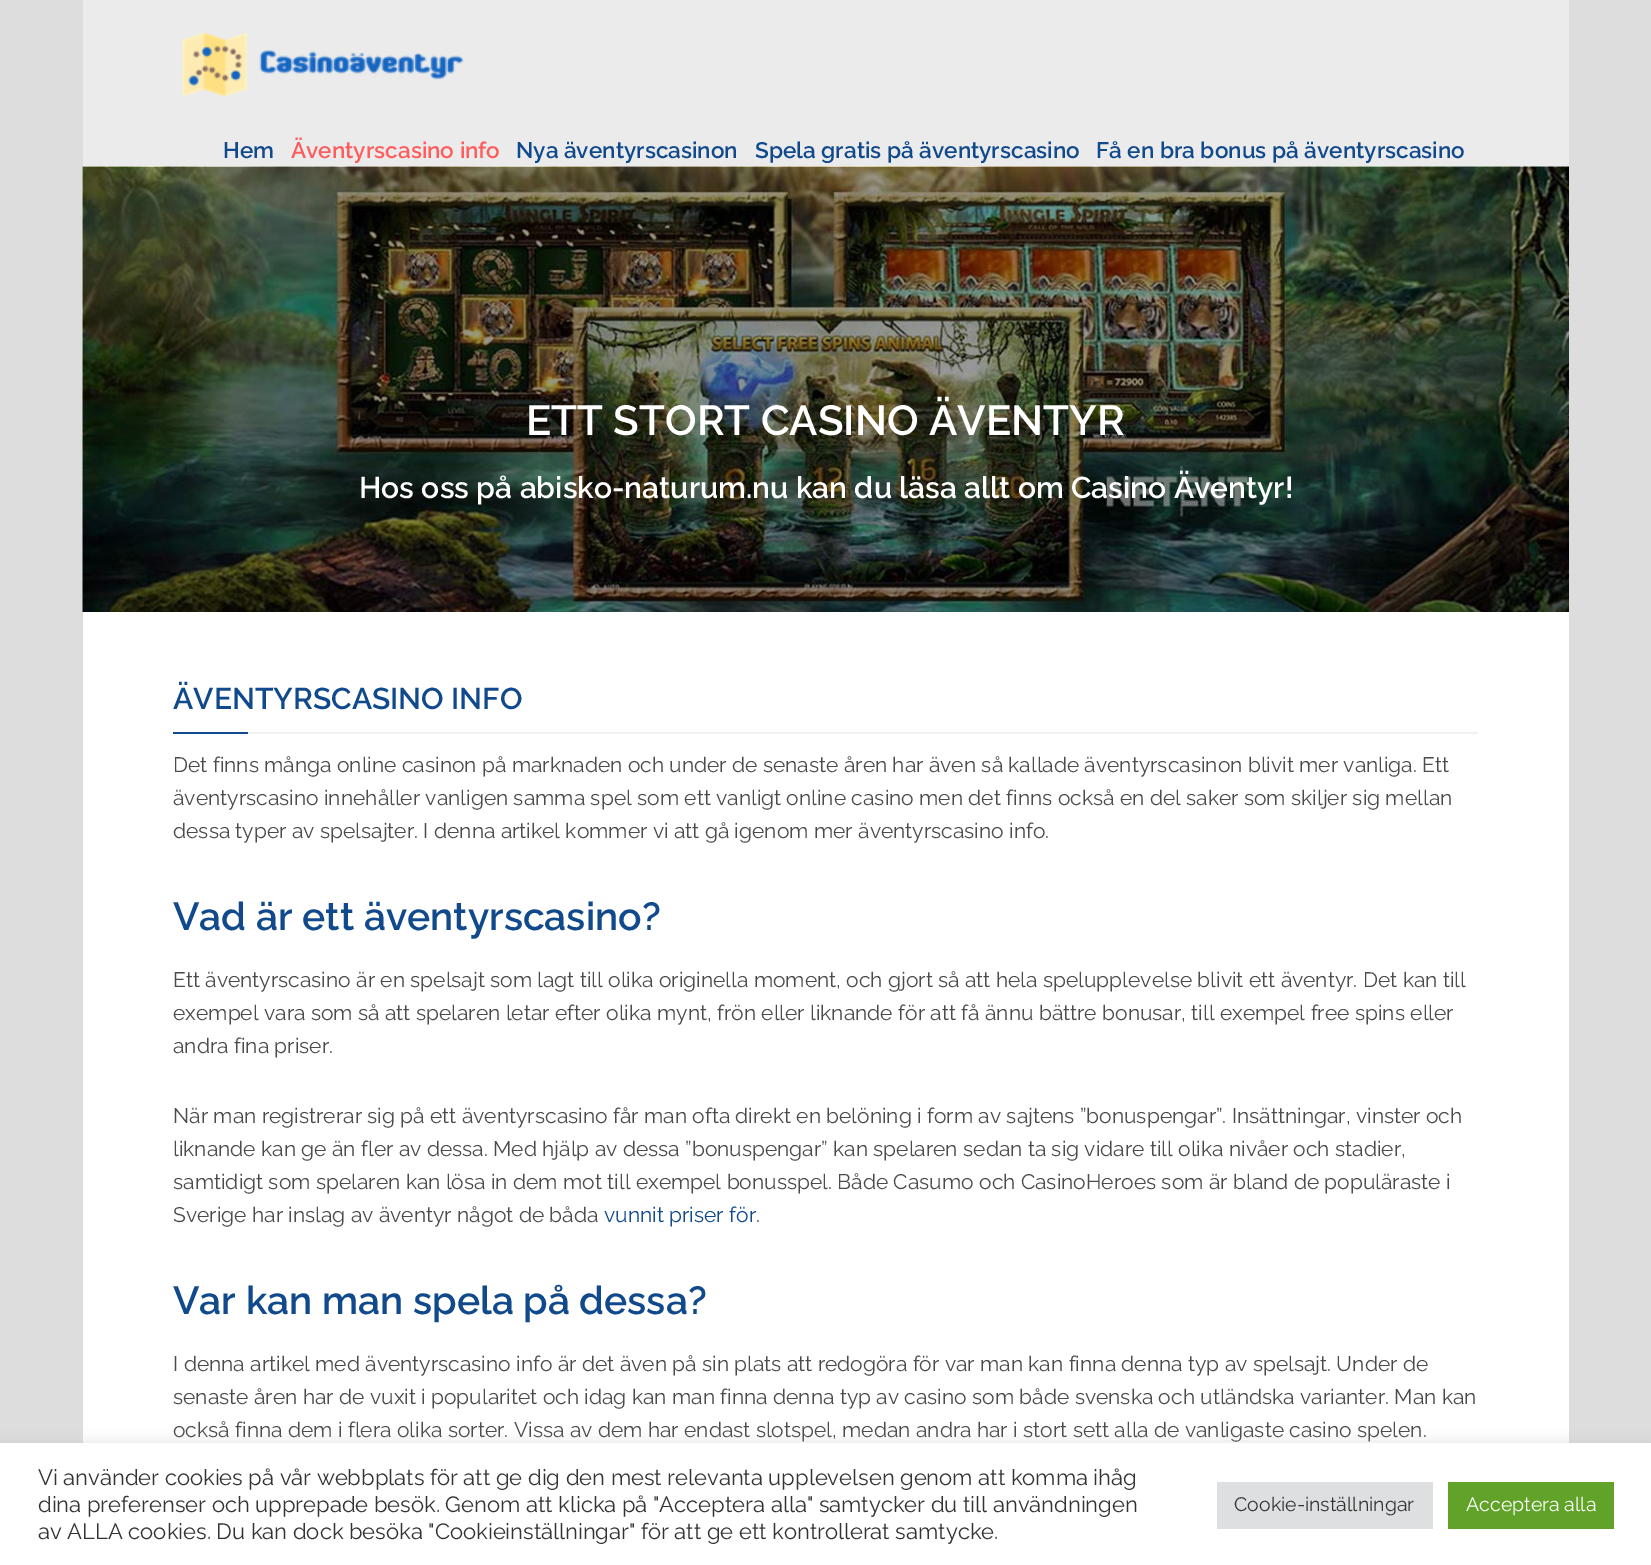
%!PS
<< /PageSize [1651 1565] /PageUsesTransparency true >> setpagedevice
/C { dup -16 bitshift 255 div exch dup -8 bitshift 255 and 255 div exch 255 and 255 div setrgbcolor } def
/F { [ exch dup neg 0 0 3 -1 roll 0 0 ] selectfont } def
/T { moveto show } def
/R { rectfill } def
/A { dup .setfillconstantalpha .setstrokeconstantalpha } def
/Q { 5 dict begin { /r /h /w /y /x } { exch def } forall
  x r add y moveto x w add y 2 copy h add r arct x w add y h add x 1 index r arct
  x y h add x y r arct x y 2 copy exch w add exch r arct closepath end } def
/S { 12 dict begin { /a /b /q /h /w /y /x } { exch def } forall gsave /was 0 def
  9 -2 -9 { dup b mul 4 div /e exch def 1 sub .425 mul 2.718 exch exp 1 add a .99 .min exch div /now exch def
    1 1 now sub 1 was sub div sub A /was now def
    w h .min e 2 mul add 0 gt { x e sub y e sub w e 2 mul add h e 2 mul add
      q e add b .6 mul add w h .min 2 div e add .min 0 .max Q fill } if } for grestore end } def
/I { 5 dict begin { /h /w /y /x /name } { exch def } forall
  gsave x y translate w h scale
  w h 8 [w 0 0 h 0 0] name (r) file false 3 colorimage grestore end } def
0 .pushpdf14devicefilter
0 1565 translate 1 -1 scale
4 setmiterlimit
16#DDDDDD C
0 0 1651 1565 R
16#EBEBEB C
83 0 1486 167 R
(1.rgb) 181 32 283 66 I
/Raleway-SemiBold 22.5 F
16#10498C C
(Hem) 223 158 T
16#FF5D5D C
(Äventyrscasino info) 291 158 T
16#10498C C
(Nya äventyrscasinon) 516 158 T
(Spela gratis på äventyrscasino) 755 158 T
(Få en bra bonus på äventyrscasino) 1096 158 T
16#FFFFFF C
83 612 1486 831 R
(2.rgb) 82 166 1487 446 I
/Raleway-SemiBold 42 F
(ETT STORT CASINO ÄVENTYR) 526 435 T
/Raleway-SemiBold 30 F
(Hos oss på abisko-naturum.nu kan du läsa allt om Casino Äventyr!) 359 498 T
16#F1F1F1 C
248 732 1230 2 R
16#10498C C
(ÄVENTYRSCASINO INFO) 173 709 T
173 732 75 2 R
/Raleway-Regular 21 F
16#4B4B4B C
(Det finns många online casinon på marknaden och under de senaste åren har även så kallade äventyrscasinon blivit mer vanliga. Ett) 173 772 T
(äventyrscasino innehåller vanligen samma spel som ett vanligt online casino men det finns också en del saker som skiljer sig mellan) 173 805 T
(dessa typer av spelsajter. I denna artikel kommer vi att gå igenom mer äventyrscasino info.) 173 838 T
/Raleway-SemiBold 39 F
16#10498C C
(Vad är ett äventyrscasino?) 173 930 T
/Raleway-Regular 21 F
16#4B4B4B C
(Ett äventyrscasino är en spelsajt som lagt till olika originella moment, och gjort så att hela spelupplevelse blivit ett äventyr. Det kan till) 173 987 T
(exempel vara som så att spelaren letar efter olika mynt, frön eller liknande för att få ännu bättre bonusar, till exempel free spins eller) 173 1020 T
(andra fina priser.) 173 1053 T
(När man registrerar sig på ett äventyrscasino får man ofta direkt en belöning i form av sajtens ”bonuspengar”. Insättningar, vinster och) 173 1123 T
(liknande kan ge än fler av dessa. Med hjälp av dessa ”bonuspengar” kan spelaren sedan ta sig vidare till olika nivåer och stadier,) 173 1156 T
(samtidigt som spelaren kan lösa in dem mot till exempel bonusspel. Både Casumo och CasinoHeroes som är bland de populäraste i) 173 1189 T
(Sverige har inslag av äventyr något de båda) 173 1222 T
16#10498C C
(vunnit priser för) 604 1222 T
16#4B4B4B C
(.) 756 1222 T
/Raleway-SemiBold 39 F
16#10498C C
(Var kan man spela på dessa?) 173 1314 T
/Raleway-Regular 21 F
16#4B4B4B C
(I denna artikel med äventyrscasino info är det även på sin plats att redogöra för var man kan finna denna typ av spelsajt. Under de) 173 1371 T
(senaste åren har de vuxit i popularitet och idag kan man finna denna typ av casino som både svenska och utländska varianter. Man kan) 173 1404 T
(också finna dem i flera olika sorter. Vissa av dem har endast slotspel, medan andra har i stort sett alla de vanligaste casino spelen.) 173 1437 T
16#ACABAB C
0 1442 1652 123 0 7.5 .3 S
16#FFFFFF C
0 1443 1651 122 R
/Raleway-Regular 22 F
16#333333 C
(Vi använder cookies på vår webbplats för att ge dig den mest relevanta upplevelsen genom att komma ihåg) 38 1485 T
(dina preferenser och upprepade besök. Genom att klicka på "Acceptera alla" samtycker du till användningen) 38 1512 T
(av ALLA cookies. Du kan dock besöka "Cookieinställningar" för att ge ett kontrollerat samtycke.) 38 1539 T
16#DEDFE0 C
1217 1482 216 47 R
/Raleway-Regular 19.5 F
16#333333 C
(Cookie-inställningar) 1234 1511 T
16#61A229 C
1448 1482 166 47 R
16#FFFFFF C
(Acceptera alla) 1466 1511 T
.poppdf14devicefilter showpage
